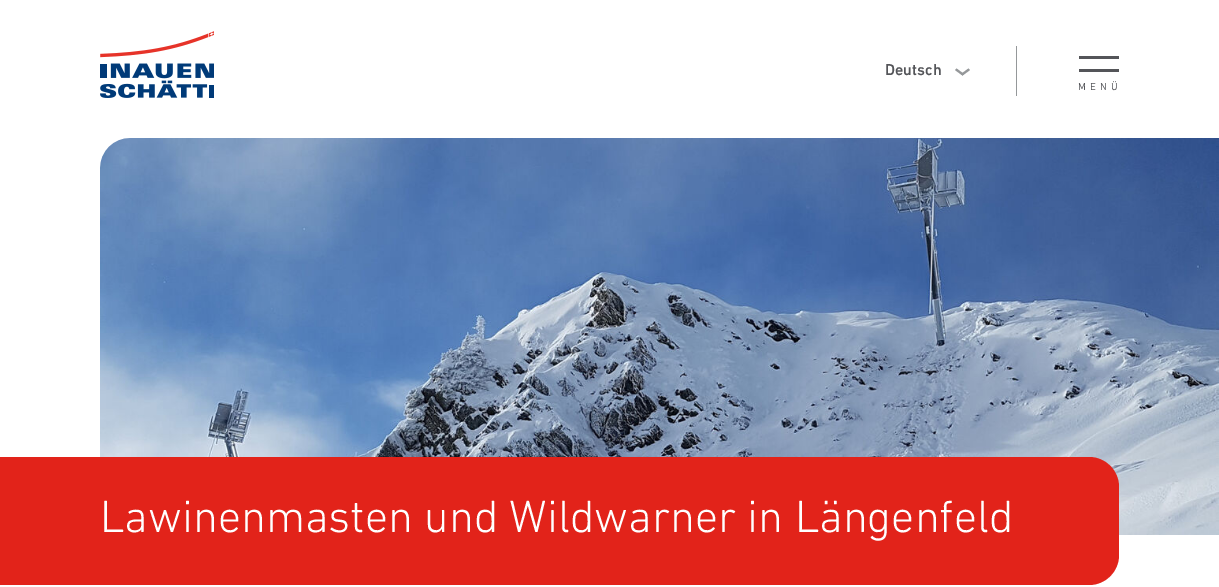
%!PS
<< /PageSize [1219 587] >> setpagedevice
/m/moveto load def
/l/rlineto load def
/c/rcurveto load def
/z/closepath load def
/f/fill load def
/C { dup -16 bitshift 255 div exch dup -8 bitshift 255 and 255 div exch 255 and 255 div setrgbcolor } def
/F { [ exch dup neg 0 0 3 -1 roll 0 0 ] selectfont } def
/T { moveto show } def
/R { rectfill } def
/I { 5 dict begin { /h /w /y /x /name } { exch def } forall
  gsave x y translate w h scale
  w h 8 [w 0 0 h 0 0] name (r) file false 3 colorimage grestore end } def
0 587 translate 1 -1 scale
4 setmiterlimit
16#FFFFFF C
0 0 1219 587 R
(1.rgb) 100 31 114 67 I
16#95989A C
1016 46 1 50 R
/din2-Regular 16 F
16#545559 C
(Deutsch) 885 75 T
16#95989A C
956.5 68.5 m 7.5 5.5 l -1.5 1.5 l -7.5 -5.5 l z f
961 74 m 7.5 -5.5 l 1.5 1.5 l -7.5 5.5 l z f
16#545559 C
1079 56 40 3 R
1079 69 40 3 R
/din-Bold 10 F
1078 90 m 4.5 0 (MENÜ) ashow
(2.rgb) 100 138 1119 397 I
16#E2231A C
0 457 m 1089 0 l 16.5 0 30 13.5 30 30 c 0 68 l 0 16.5 -13.5 30 -30 30 c -1089 0 l z f
/din-Regular 46 F
16#FFFFFF C
(Lawinenmasten und Wildwarner in Längenfeld) 100 532 T
showpage
